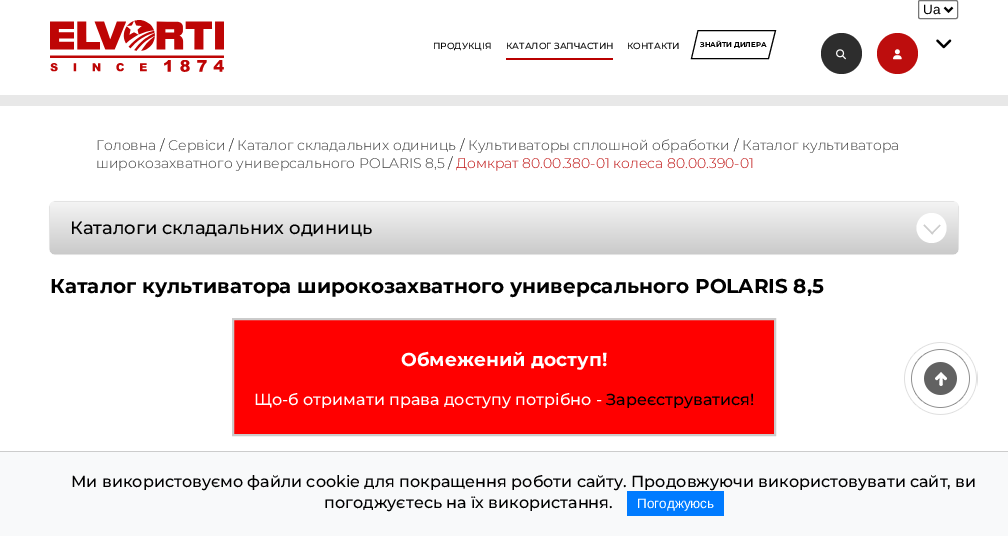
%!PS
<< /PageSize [1008 536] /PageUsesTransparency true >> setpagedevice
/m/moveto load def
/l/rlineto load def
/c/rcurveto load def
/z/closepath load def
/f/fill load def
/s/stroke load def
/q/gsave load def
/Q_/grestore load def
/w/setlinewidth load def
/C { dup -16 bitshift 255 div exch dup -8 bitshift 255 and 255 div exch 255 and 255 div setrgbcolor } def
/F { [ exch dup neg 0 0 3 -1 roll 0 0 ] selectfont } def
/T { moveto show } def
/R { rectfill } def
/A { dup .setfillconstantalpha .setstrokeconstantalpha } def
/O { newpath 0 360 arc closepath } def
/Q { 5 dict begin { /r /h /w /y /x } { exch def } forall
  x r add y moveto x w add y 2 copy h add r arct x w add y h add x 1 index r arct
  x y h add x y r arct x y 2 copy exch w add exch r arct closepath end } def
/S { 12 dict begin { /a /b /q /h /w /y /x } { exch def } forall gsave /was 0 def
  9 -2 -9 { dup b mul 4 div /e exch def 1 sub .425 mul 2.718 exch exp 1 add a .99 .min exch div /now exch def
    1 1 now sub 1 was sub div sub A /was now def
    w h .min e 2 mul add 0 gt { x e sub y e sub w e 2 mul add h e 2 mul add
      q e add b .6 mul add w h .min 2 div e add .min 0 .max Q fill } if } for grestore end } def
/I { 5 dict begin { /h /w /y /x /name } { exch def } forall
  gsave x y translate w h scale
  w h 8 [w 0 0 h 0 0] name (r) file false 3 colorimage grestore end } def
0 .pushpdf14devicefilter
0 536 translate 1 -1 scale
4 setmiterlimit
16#FFFFFF C
0 0 1008 536 R
(1.rgb) 50 20 174 52 I
16#767676 C
918.5 .5 39 18 1.5 Q s
16#000000 C
2 w
944.5 7.5 m 4 4 l 4 -4 l s
/LiberationSans-Regular 13.5 F
(Ua) 923 14 T
(2.rgb) 936 39 16 10 I
/Montserrat-Medium 9 F
(ПРОДУКЦІЯ) 433 49 T
16#B90000 C
506 58 107 2 R
16#000000 C
(КАТАЛОГ ЗАПЧАСТИН) 506 49 T
(КОНТАКТИ) 627 49 T
1 w
698 30.5 m 77.5 0 l -7 28 l -77 0 l z s
/Montserrat-Bold 7 F
(ЗНАЙТИ ДИЛЕРА) 700 47 T
16#2D2D2D C
841.5 53.5 20.5 O f
(3.rgb) 836 49 10 11 I
16#BD0D0D C
897.5 53.5 20.5 O f
(4.rgb) 893 49 9 11 I
16#E8E8E8 C
0 95 1008 11 R
/Montserrat-Light 14 F
16#3C3C3C C
(Головна) 96 150 T
16#000000 C
(/) 160 150 T
16#3C3C3C C
(Сервіси) 168 150 T
16#000000 C
(/) 229 150 T
16#3C3C3C C
(Каталог складальних одиниць) 237 150 T
16#000000 C
(/) 460 150 T
16#3C3C3C C
(Культиваторы сплошной обработки) 468 150 T
16#000000 C
(/) 734 150 T
16#3C3C3C C
(Каталог культиватора) 742 150 T
(широкозахватного универсального POLARIS 8,5) 96 168 T
16#000000 C
(/) 448 168 T
16#BD0D0D C
(Домкрат 80.00.380-01 колеса 80.00.390-01) 456 168 T
16#000000 C
50 202 908 52 5 .5 .4 S
q 50 202 908 52 5 Q clip newpath
<< /ShadingType 2 /ColorSpace /DeviceRGB /Coords [504 202 504 254] /Extend [true true] /Function << /FunctionType 2 /Domain [0 1] /C0 [.957 .957 .957] /C1 [.792 .792 .792] /N 1 >> >> shfill Q_
/Montserrat-Medium 18 F
(Каталоги складальних одиниць) 70 234 T
16#FFFFFF C
916.5 228 m 0 -8.5 7 -15 15 -15 c 8.5 0 15 6.5 15 15 c 0 8.5 -6.5 15 -15 15 c -8 0 -15 -6.5 -15 -15 c z f
(5.rgb) 923 224 18 11 I
/Montserrat-Bold 20 F
16#000000 C
(Каталог культиватора широкозахватного универсального POLARIS 8,5) 50 293 T
16#FF0000 C
233 319 m 542 0 l 0 116 l -542 0 l z q f Q_
16#CBCBCB C
2 w
s
/Montserrat-Bold 18.75 F
16#FFFFFF C
(Обмежений доступ!) 401 366 T
/Montserrat-Medium 16 F
(Що-б отримати права доступу потрібно -) 254 405 T
16#000000 C
(Зареєструватися!) 606 405 T
(6.rgb) 904 342 74 73 I
16#F8F9FA C
0 452 1008 84 R
16#CCCCCC C
0 451 1008 1 R
16#000000 C
(Ми використовуємо файли cookie для покращення роботи сайту. Продовжуючи використовувати сайт, ви) 71 487 T
(погоджуєтесь на їх використання.) 324 508 T
16#007BFF C
627 491 97 25 R
/LiberationSans-Regular 13.5 F
16#FFFFFF C
(Погоджуюсь) 637 508 T
.poppdf14devicefilter showpage
